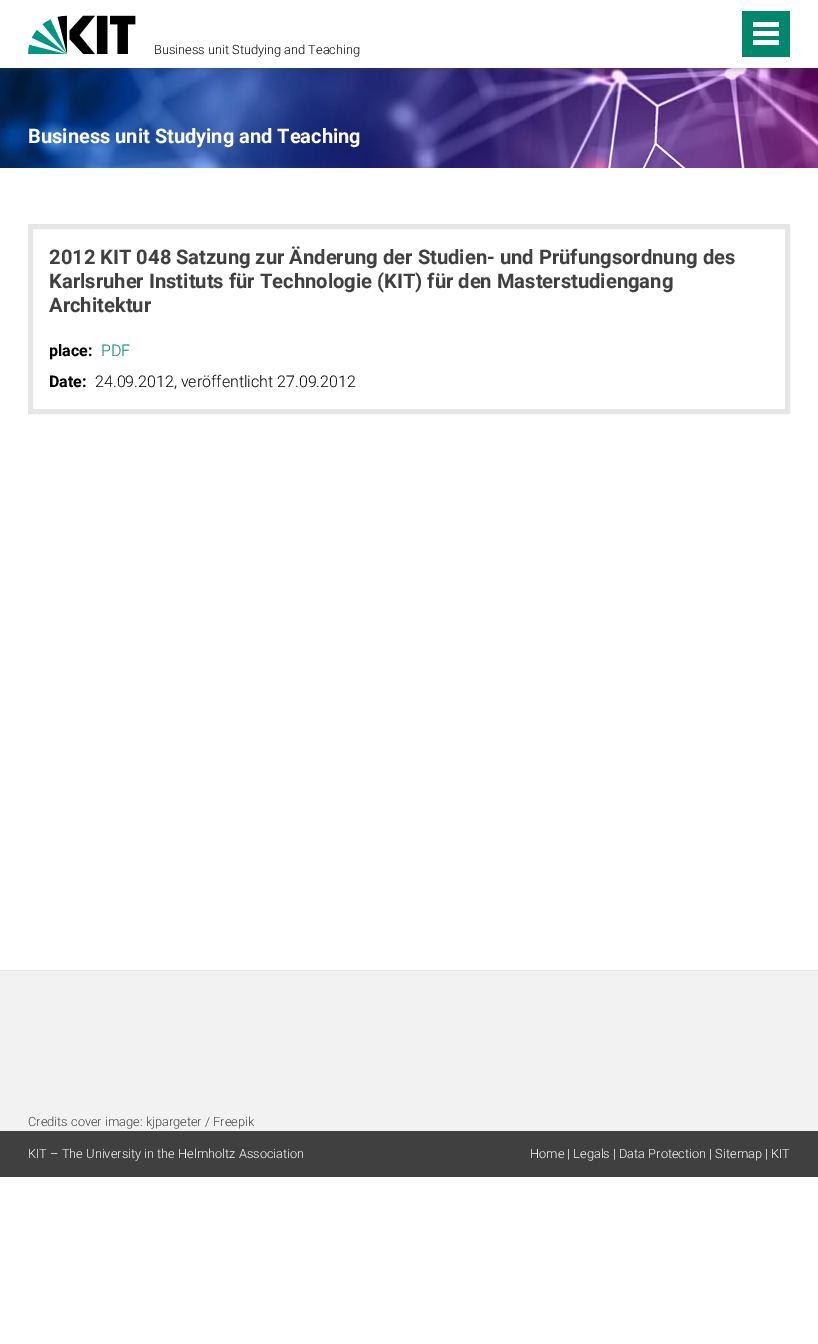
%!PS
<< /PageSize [818 1344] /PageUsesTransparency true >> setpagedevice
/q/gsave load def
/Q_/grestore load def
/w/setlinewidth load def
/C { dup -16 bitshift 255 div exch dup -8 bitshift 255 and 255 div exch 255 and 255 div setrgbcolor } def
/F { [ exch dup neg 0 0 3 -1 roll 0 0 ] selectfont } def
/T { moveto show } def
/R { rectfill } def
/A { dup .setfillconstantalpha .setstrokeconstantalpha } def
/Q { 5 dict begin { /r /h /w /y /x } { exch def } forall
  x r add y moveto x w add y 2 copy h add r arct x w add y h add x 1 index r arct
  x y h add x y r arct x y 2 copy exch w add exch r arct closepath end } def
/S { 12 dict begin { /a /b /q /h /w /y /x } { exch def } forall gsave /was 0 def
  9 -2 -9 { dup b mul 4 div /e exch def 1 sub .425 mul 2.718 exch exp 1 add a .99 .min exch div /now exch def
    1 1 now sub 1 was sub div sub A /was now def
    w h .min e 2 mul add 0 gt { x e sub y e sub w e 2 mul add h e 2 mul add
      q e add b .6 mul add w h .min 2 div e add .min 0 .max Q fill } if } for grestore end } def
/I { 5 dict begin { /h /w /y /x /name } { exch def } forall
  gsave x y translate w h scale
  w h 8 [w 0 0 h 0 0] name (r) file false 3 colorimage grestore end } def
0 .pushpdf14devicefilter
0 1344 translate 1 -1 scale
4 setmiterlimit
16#FFFFFF C
0 0 818 1344 R
(2.rgb) 0 68 818 100 I
q
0 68 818 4 rectclip
16#404040 C
0 0 818 68 0 2.5 .5 S
Q_
(1.rgb) 28 15 108 39 I
/Roboto-Light 12.8 F
16#000000 C
(Business unit Studying and Teaching) 154 54 T
16#00876C C
742 11 48 46 R
16#FFFFFF C
753 40 26 5 R
753 31 26 5 R
753 22 26 5 R
/Roboto-Bold 20 F
(Business unit Studying and Teaching) 28 143 T
16#E6E6E6 C
5 w
30.5 226.5 757 185 rectstroke
/Roboto-Bold 20.15 F
16#404040 C
(2012 KIT 048 Satzung zur Änderung der Studien- und Prüfungsordnung des) 49 264 T
(Karlsruher Instituts für Technologie \(KIT\) für den Masterstudiengang) 49 288 T
(Architektur) 49 312 T
/Roboto-Bold 16 F
16#000000 C
(place:) 49 356 T
/Roboto-Light 16 F
16#00876C C
(PDF) 101 356 T
/Roboto-Bold 16 F
16#000000 C
(Date:) 49 387 T
/Roboto-Light 16 F
(24.09.2012, veröffentlicht 27.09.2012) 95 387 T
16#F2F2F2 C
0 971 818 160 R
16#E6E6E6 C
0 970 818 1 R
/Roboto-Light 12.8 F
16#404040 C
(Credits cover image: kjpargeter / Freepik) 28 1126 T
0 1131 818 46 R
16#FFFFFF C
(KIT – The University in the Helmholtz Association) 28 1158 T
(Home | Legals | Data Protection | Sitemap | KIT) 530 1158 T
.poppdf14devicefilter showpage
